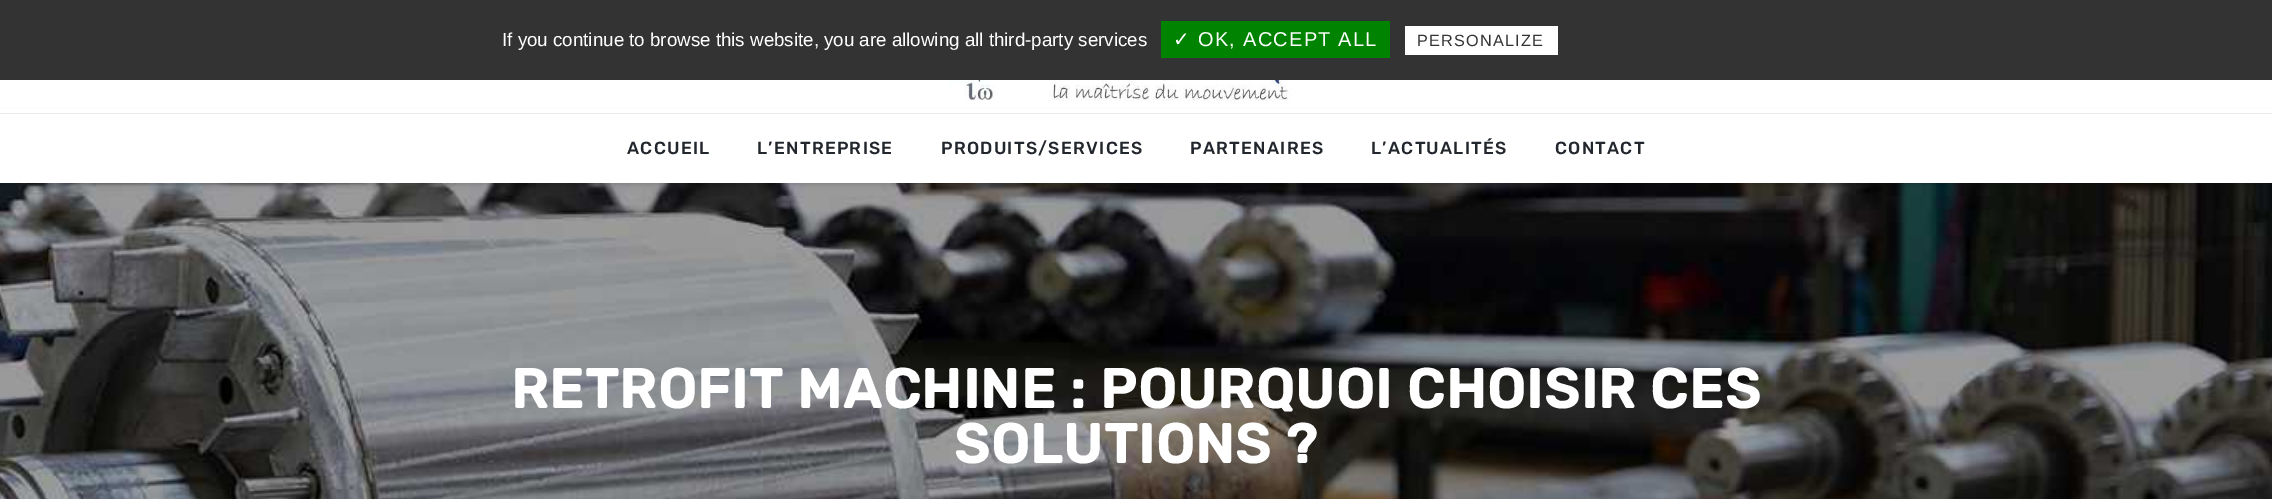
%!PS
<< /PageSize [2272 499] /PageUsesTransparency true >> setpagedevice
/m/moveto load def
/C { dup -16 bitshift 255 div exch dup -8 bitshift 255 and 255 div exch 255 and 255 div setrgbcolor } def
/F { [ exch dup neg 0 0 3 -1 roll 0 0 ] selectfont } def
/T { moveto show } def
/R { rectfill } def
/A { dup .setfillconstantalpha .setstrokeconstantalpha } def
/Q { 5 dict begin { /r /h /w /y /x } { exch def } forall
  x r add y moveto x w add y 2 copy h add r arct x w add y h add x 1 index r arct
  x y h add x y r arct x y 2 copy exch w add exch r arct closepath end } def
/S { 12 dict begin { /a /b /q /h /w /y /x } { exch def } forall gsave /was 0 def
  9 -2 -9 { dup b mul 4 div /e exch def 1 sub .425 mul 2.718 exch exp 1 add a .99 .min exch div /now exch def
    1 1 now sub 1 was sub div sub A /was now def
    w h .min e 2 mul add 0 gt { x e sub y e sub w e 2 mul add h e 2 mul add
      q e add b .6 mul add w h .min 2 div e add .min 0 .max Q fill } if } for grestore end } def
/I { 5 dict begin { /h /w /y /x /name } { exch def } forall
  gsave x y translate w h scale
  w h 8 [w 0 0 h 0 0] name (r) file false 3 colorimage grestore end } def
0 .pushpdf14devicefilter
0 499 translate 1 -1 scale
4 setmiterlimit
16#FFFFFF C
0 0 2272 499 R
16#333333 C
0 0 2272 80 R
/LiberationSans-Regular 18.75 F
16#FFFFFF C
(If you continue to browse this website, you are allowing all third-party services) 502 46 T
16#008300 C
1161 21 229 37 R
/DejaVuSans-Regular 20 F
16#FFFFFF C
1173 46 m 1.25 0 (✓) ashow
/LiberationSans-Regular 20 F
1198 46 m 1.25 0 (OK, ACCEPT ALL) ashow
1405 26 153 29 R
/LiberationSans-Regular 16.25 F
16#333333 C
1417 46 m 1.25 0 (PERSONALIZE) ashow
(2.rgb) 0 183 2272 316 I
16#000000 C
0 114 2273 70 0 3 .2 S
16#FFFFFF C
0 109 2272 4 R
(1.rgb) 943 80 392 21 I
0 114 2272 69 R
16#EAEAEA C
0 113 2272 1 R
/Rubik-Medium 17.5 F
16#22262D C
627 154 m 1.25 0 (ACCUEIL) ashow
757 154 m 1.25 0 (L’ENTREPRISE) ashow
941 154 m 1.25 0 (PRODUITS/SERVICES) ashow
1190 154 m 1.25 0 (PARTENAIRES) ashow
1371 154 m 1.25 0 (L’ACTUALITÉS) ashow
1555 154 m 1.25 0 (CONTACT) ashow
/Rubik-Bold 55 F
16#FFFFFF C
511 408 m 1.25 0 (RETROFIT MACHINE : POURQUOI CHOISIR CES) ashow
954 463 m 1.25 0 (SOLUTIONS ?) ashow
.poppdf14devicefilter showpage
